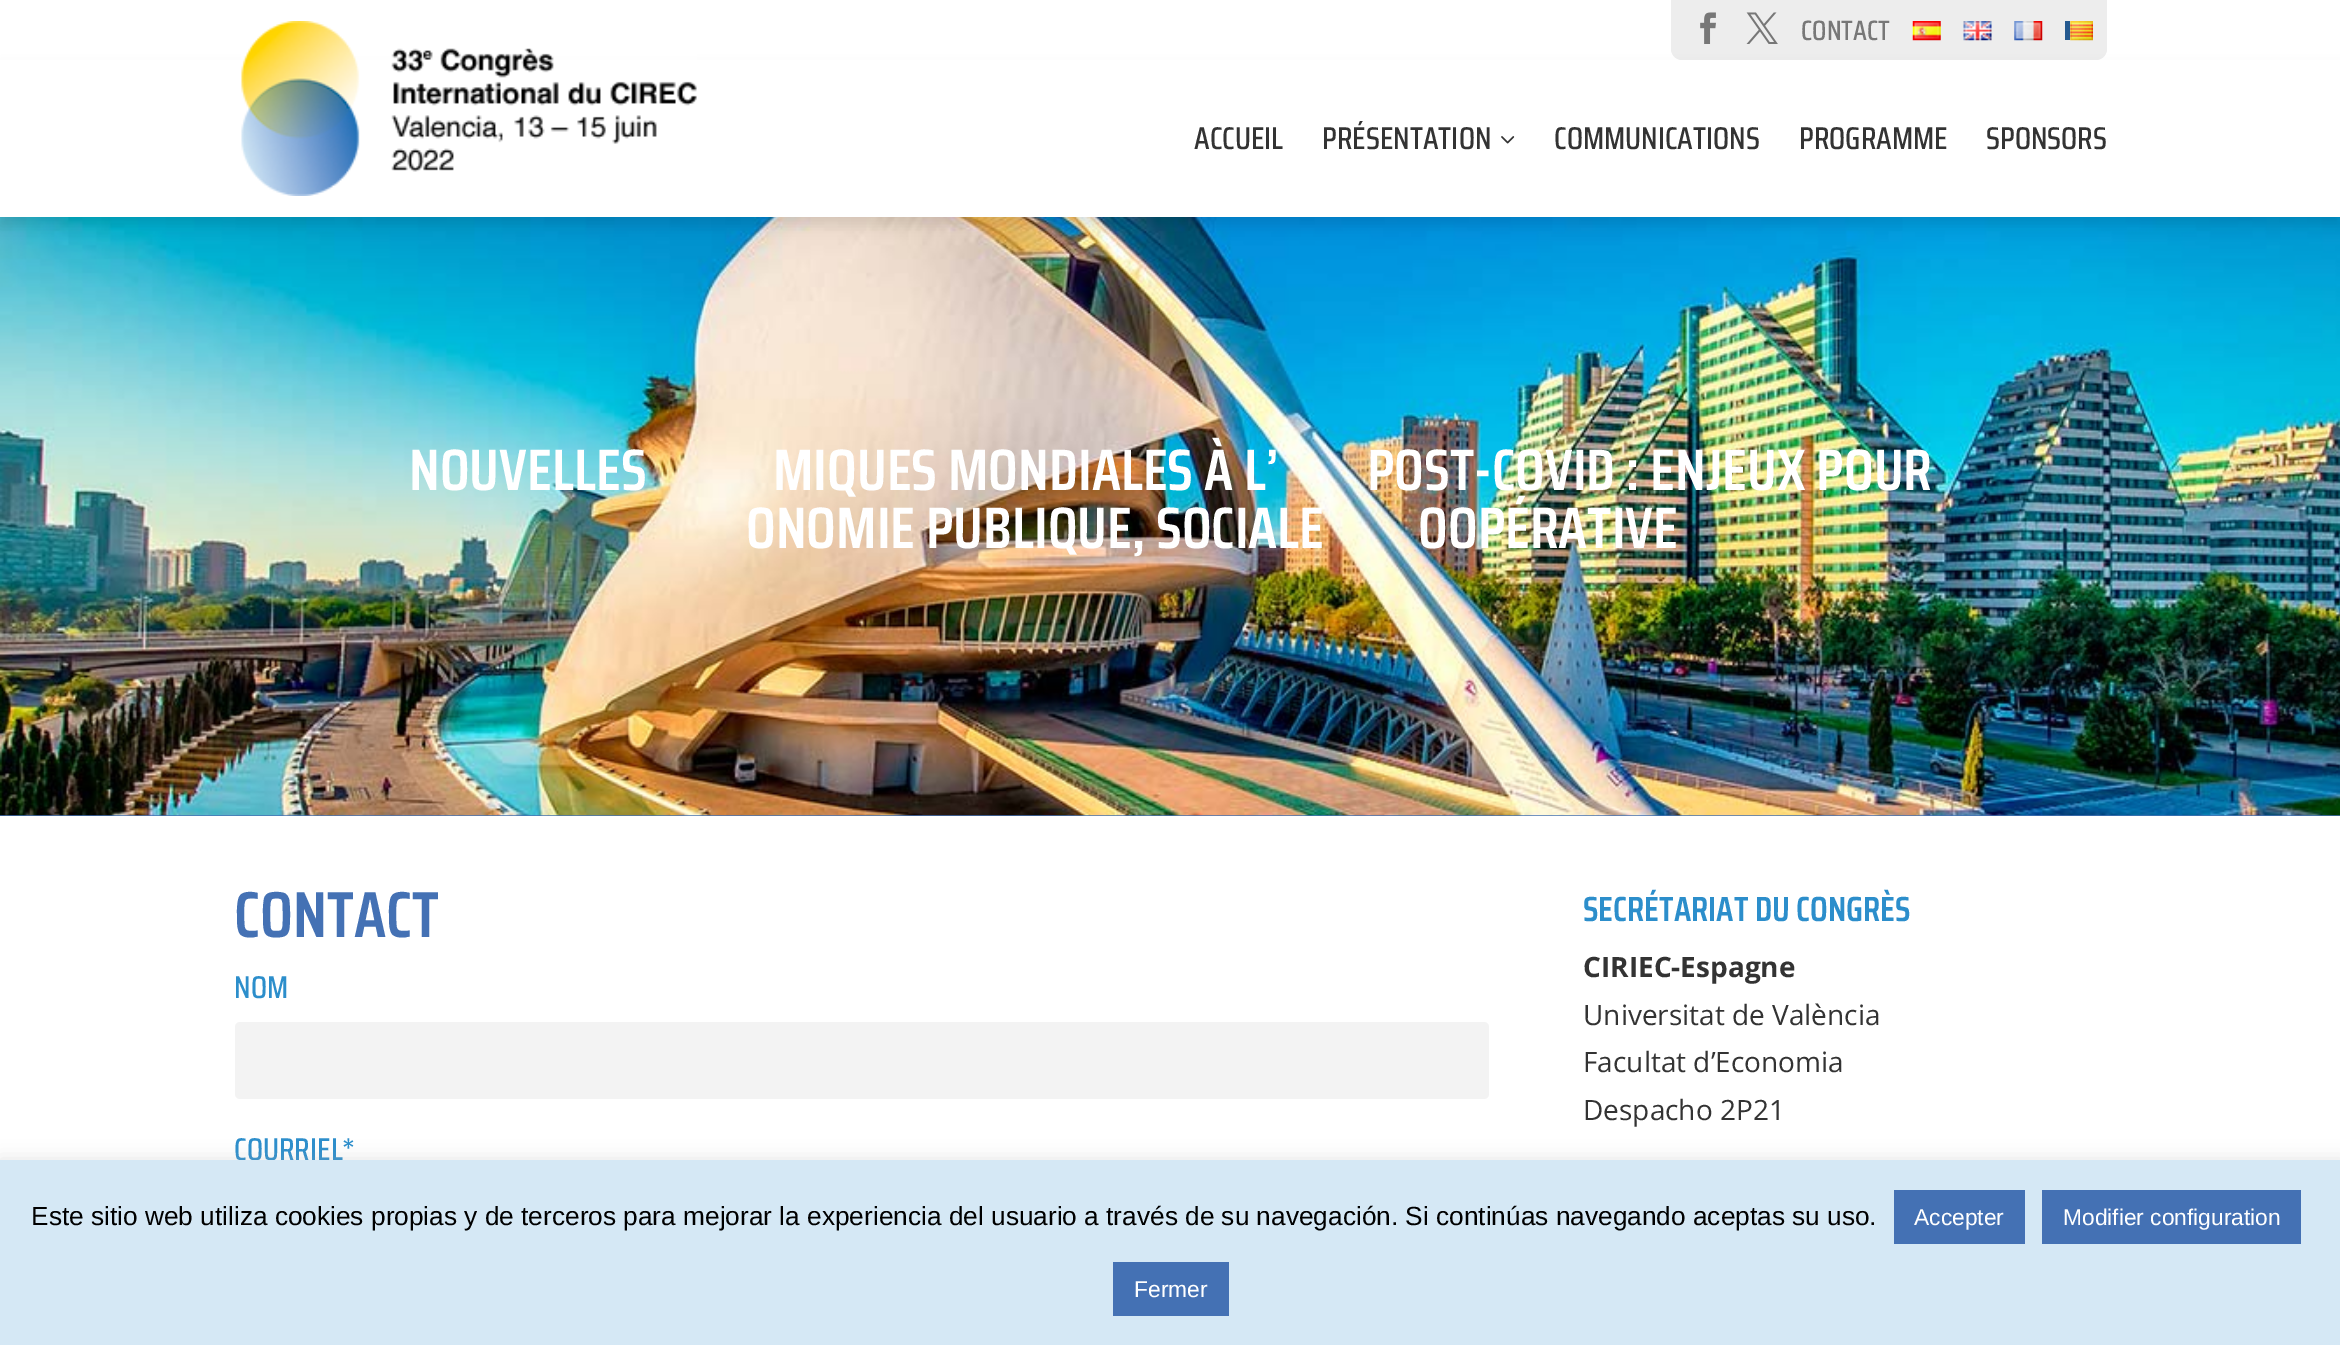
%!PS
<< /PageSize [2340 1345] /PageUsesTransparency true >> setpagedevice
/m/moveto load def
/l/rlineto load def
/c/rcurveto load def
/z/closepath load def
/f/fill load def
/C { dup -16 bitshift 255 div exch dup -8 bitshift 255 and 255 div exch 255 and 255 div setrgbcolor } def
/F { [ exch dup neg 0 0 3 -1 roll 0 0 ] selectfont } def
/T { moveto show } def
/R { rectfill } def
/A { dup .setfillconstantalpha .setstrokeconstantalpha } def
/Q { 5 dict begin { /r /h /w /y /x } { exch def } forall
  x r add y moveto x w add y 2 copy h add r arct x w add y h add x 1 index r arct
  x y h add x y r arct x y 2 copy exch w add exch r arct closepath end } def
/S { 12 dict begin { /a /b /q /h /w /y /x } { exch def } forall gsave /was 0 def
  9 -2 -9 { dup b mul 4 div /e exch def 1 sub .425 mul 2.718 exch exp 1 add a .99 .min exch div /now exch def
    1 1 now sub 1 was sub div sub A /was now def
    w h .min e 2 mul add 0 gt { x e sub y e sub w e 2 mul add h e 2 mul add
      q e add b .6 mul add w h .min 2 div e add .min 0 .max Q fill } if } for grestore end } def
/I { 5 dict begin { /h /w /y /x /name } { exch def } forall
  gsave x y translate w h scale
  w h 8 [w 0 0 h 0 0] name (r) file false 3 colorimage grestore end } def
0 .pushpdf14devicefilter
0 1345 translate 1 -1 scale
4 setmiterlimit
16#4471B4 C
0 0 2340 1345 R
16#FFFFFF C
0 0 2340 60 R
16#EDEDED C
1671 0 m 436 0 l 0 49 l 0 6 -5 11 -11 11 c -414 0 l -6 0 -11 -5 -11 -11 c z f
(1.rgb) 1700 12 16 32 I
(2.rgb) 1746 12 32 32 I
/SairaCondensed-Medium 28 F
16#777777 C
(CONTACT) 1801 40 T
(3.rgb) 1912 21 29 20 I
(4.rgb) 1963 21 29 20 I
(5.rgb) 2014 21 29 20 I
16#24598F C
2065 21 5 19 R
(6.rgb) 2070 21 23 20 I
(9.rgb) 0 217 2340 599 I
16#000000 C
0 68 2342 158 0 6 .1 S
16#FFFFFF C
0 60 2340 157 R
(7.rgb) 241 21 456 175 I
/SairaCondensed-Medium 31.5 F
16#333333 C
(ACCUEIL) 1194 149 T
(PRÉSENTATION) 1322 149 T
(8.rgb) 1501 136 14 8 I
(COMMUNICATIONS) 1554 149 T
(PROGRAMME) 1799 149 T
(SPONSORS) 1986 149 T
/SairaCondensed-SemiBold 58.5 F
16#FFFFFF C
(NOUVELLES) 409 490 T
(MIQUES MONDIALES À L’) 773 490 T
(POST-COVID : ENJEUX POUR) 1367 490 T
(ONOMIE PUBLIQUE, SOCIALE) 746 548 T
(OOPÉRATIVE) 1418 548 T
0 816 2340 344 R
/SairaCondensed-SemiBold 65 F
16#4471B4 C
(CONTACT) 234 937 T
/SairaCondensed-Medium 31.5 F
16#2C8ECB C
(NOM) 234 998 T
16#F3F3F3 C
235 1022 1254 77 5 Q f
16#2C8ECB C
(COURRIEL*) 234 1160 T
/SairaCondensed-SemiBold 35 F
(SECRÉTARIAT DU CONGRÈS) 1583 921 T
/OpenSans-Bold 28 F
16#333333 C
(CIRIEC-Espagne) 1583 977 T
/OpenSans-Regular 28 F
(Universitat de València) 1583 1025 T
(Facultat d’Economia) 1583 1072 T
(Despacho 2P21) 1583 1120 T
16#ACABAB C
0 1159 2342 185 0 9 .3 S
16#D5E8F5 C
0 1160 2340 185 R
/LiberationSans-Regular 26.25 F
16#000000 C
(Este sitio web utiliza cookies propias y de terceros para mejorar la experiencia del usuario a través de su navegación. Si continúas navegando aceptas su uso.) 31 1225 T
16#4471B4 C
1894 1190 131 54 R
/LiberationSans-Regular 22.75 F
16#FFFFFF C
(Accepter) 1914 1225 T
16#4471B4 C
2042 1190 259 54 R
16#FFFFFF C
(Modifier configuration) 2063 1225 T
16#4471B4 C
1113 1262 116 54 R
16#FFFFFF C
(Fermer) 1134 1297 T
.poppdf14devicefilter showpage
